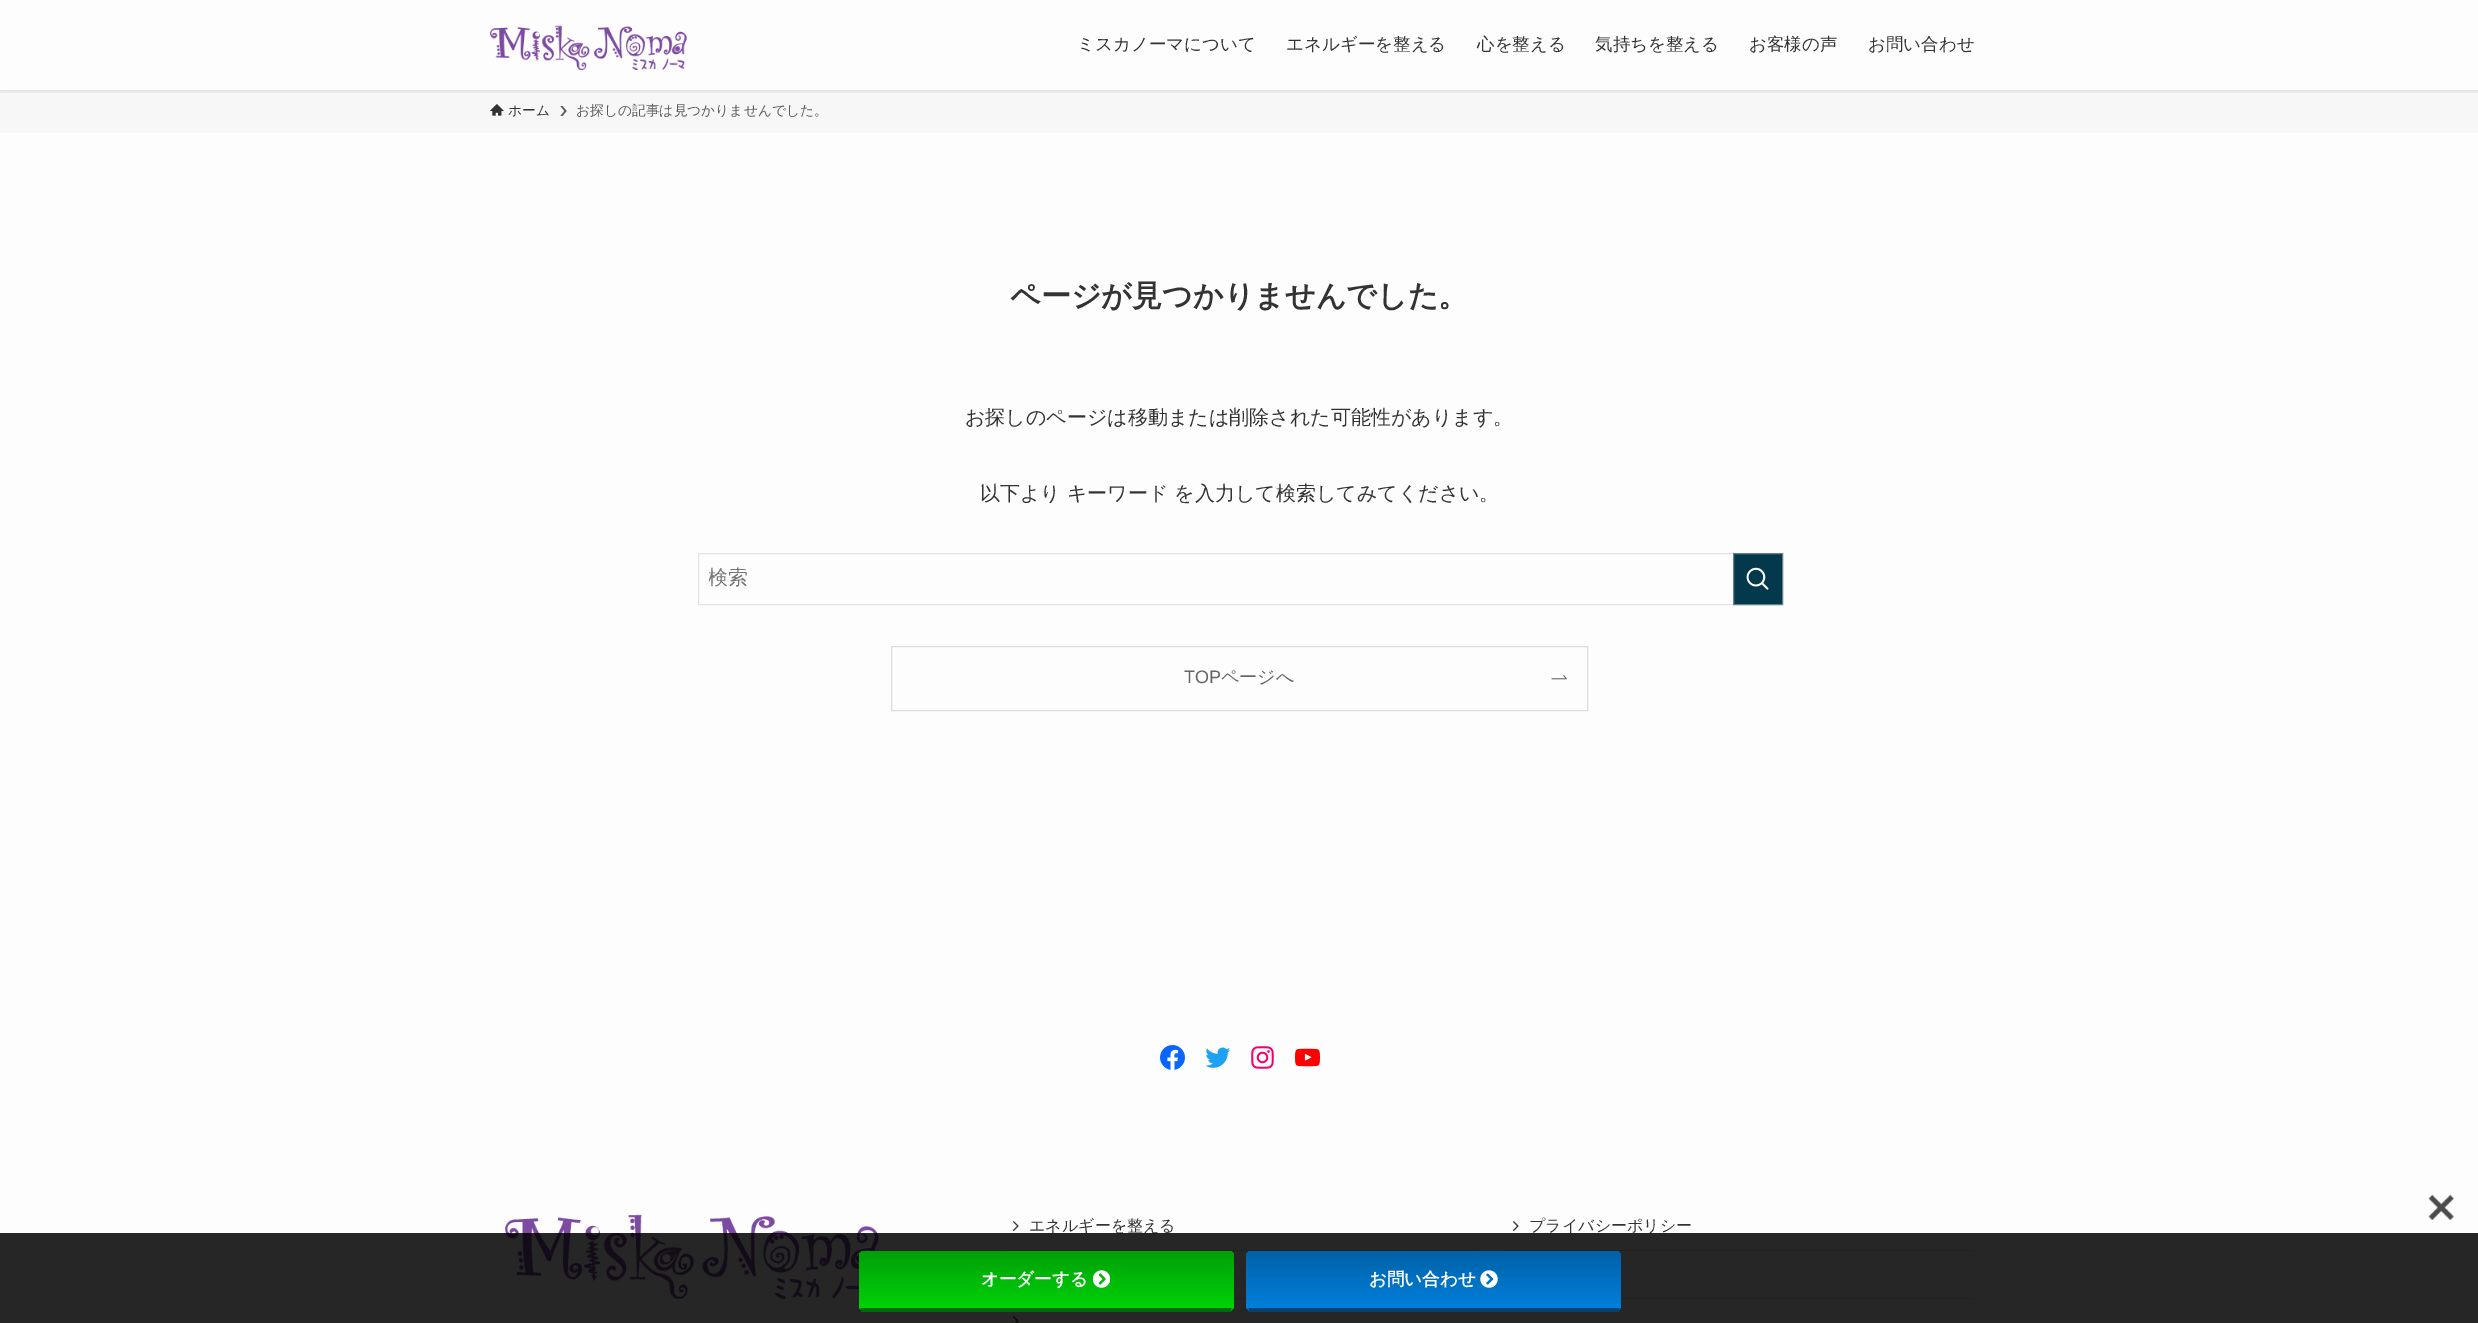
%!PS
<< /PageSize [2478 1323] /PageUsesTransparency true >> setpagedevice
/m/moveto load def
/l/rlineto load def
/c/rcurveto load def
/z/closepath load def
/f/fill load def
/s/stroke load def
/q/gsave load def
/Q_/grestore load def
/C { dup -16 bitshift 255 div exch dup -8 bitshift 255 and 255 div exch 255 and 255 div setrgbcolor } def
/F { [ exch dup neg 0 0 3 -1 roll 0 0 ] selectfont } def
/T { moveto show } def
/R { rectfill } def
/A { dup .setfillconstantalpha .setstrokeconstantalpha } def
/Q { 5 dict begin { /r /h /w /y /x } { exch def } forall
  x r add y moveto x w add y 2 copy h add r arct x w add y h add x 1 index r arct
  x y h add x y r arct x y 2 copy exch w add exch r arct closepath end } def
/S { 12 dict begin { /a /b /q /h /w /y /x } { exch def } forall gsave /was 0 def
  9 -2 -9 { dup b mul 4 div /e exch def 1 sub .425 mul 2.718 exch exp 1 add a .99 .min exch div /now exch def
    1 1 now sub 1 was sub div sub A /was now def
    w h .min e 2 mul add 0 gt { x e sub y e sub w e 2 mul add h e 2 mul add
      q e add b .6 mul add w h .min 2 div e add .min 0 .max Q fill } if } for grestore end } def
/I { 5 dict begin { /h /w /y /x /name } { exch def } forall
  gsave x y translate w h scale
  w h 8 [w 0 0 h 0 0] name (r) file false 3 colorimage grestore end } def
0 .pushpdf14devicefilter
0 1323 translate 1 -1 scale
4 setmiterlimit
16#FDFDFD C
0 0 2478 1323 R
16#F7F7F7 C
0 90 2478 43 R
q
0 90 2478 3 rectclip
16#000000 C
0 1 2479 90 0 2.5 .12 S
Q_
(1.rgb) 490 25 197 45 I
/WenQuanYiZenHei-Medium 17.5 F
16#333333 C
(ミスカノーマについて) 1077 50 T
(エネルギーを整える) 1286 50 T
(心を整える) 1477 50 T
(気持ちを整える) 1595 50 T
(お客様の声) 1749 50 T
(お問い合わせ) 1868 50 T
(2.rgb) 490 104 14 12 I
/WenQuanYiZenHei-Medium 13.75 F
(ホーム) 508 115 T
16#5A5A5A C
562.5 106 m -2 0 l 4 5 l -4 5 l 2 0 l 4 -5 l z f
(お探しの記事は見つかりませんでした。) 576 115 T
/WenQuanYiZenHei-Bold 30 F
16#333333 C
(ページが見つかりませんでした。) 1010 306 T
/WenQuanYiZenHei-Medium 20 F
(お探しのページは移動または削除された可能性があります。) 965 424 T
(以下より キーワード を入力して検索してみてください。) 980 500 T
16#E3E3E3 C
698.5 553.5 1084 51 rectstroke
q
709 566 1017 27 rectclip
16#757575 C
(検索) 708 584 T
Q_
16#04384C C
1733.5 553.5 m 49 0 l 0 51 l -49 0 l z q f Q_
16#66808A C
s
(3.rgb) 1746 567 23 23 I
16#DCDCDC C
891.5 646.5 696 64 rectstroke
/LiberationSans-Regular 18 F
16#666666 C
(TOP) 1184 683 T
/WenQuanYiZenHei-Medium 18 F
(ページへ) 1221 683 T
(4.rgb) 1551 675 16 5 I
(5.rgb) 1160 1045 25 25 I
(6.rgb) 1205 1047 26 21 I
(7.rgb) 1251 1046 23 23 I
(8.rgb) 1295 1048 25 19 I
(9.rgb) 505 1214 374 85 I
16#E2E2E2 C
1005 1250 469 1 R
(10.rgb) 1013 1221 6 10 I
/WenQuanYiZenHei-Medium 16 F
16#333333 C
(エネルギーを整える) 1029 1231 T
16#E2E2E2 C
1234 1298 12 1 R
(11.rgb) 1013 1316 6 7 I
1505 1250 469 1 R
(10.rgb) 1513 1221 6 10 I
16#333333 C
(プライバシーポリシー) 1529 1231 T
16#E2E2E2 C
1621 1298 353 1 R
0.85 A
16#000000 C
0 1233 2478 90 R
1 A
(12.rgb) 2428 1194 26 26 I
q
859 1251 375 60 5 Q clip newpath
q 864 1251 m 365 0 l 3 0 5 2 5 5 c 0 52 l -375 0 l 0 -52 l 0 -3 2 -5 5 -5 c z clip newpath
<< /ShadingType 2 /ColorSpace /DeviceRGB /Coords [1046 1251 1046 1308] /Extend [true true] /Function << /FunctionType 2 /Domain [0 1] /C0 [0 .624 .027] /C1 [0 .824 .035] /N 1 >> >> shfill Q_
q 859 1308 m 375 0 l 0 3 l -375 0 l z clip newpath
<< /ShadingType 2 /ColorSpace /DeviceRGB /Coords [1046 1308 1046 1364] /Extend [true true] /Function << /FunctionType 2 /Domain [0 1] /C0 [0 .624 .027] /C1 [0 .824 .035] /N 1 >> >> shfill Q_
Q_
16#006C05 C
861 1308 370 4 R
/WenQuanYiZenHei-Bold 17.5 F
16#FFFFFF C
(オーダーする) 981 1285 T
(13.rgb) 1093 1270 17 18 I
q
1246 1251 375 60 5 Q clip newpath
q 1251 1251 m 365 0 l 3 0 5 2 5 5 c 0 52 l -375 0 l 0 -52 l 0 -3 2 -5 5 -5 c z clip newpath
<< /ShadingType 2 /ColorSpace /DeviceRGB /Coords [1434 1251 1434 1308] /Extend [true true] /Function << /FunctionType 2 /Domain [0 1] /C0 [0 .38 .655] /C1 [0 .498 .855] /N 1 >> >> shfill Q_
q 1246 1308 m 375 0 l 0 3 l -375 0 l z clip newpath
<< /ShadingType 2 /ColorSpace /DeviceRGB /Coords [1434 1308 1434 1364] /Extend [true true] /Function << /FunctionType 2 /Domain [0 1] /C0 [0 .38 .655] /C1 [0 .498 .855] /N 1 >> >> shfill Q_
Q_
16#004374 C
1249 1308 370 4 R
16#FFFFFF C
(お問い合わせ) 1369 1285 T
(14.rgb) 1480 1270 18 18 I
.poppdf14devicefilter showpage
